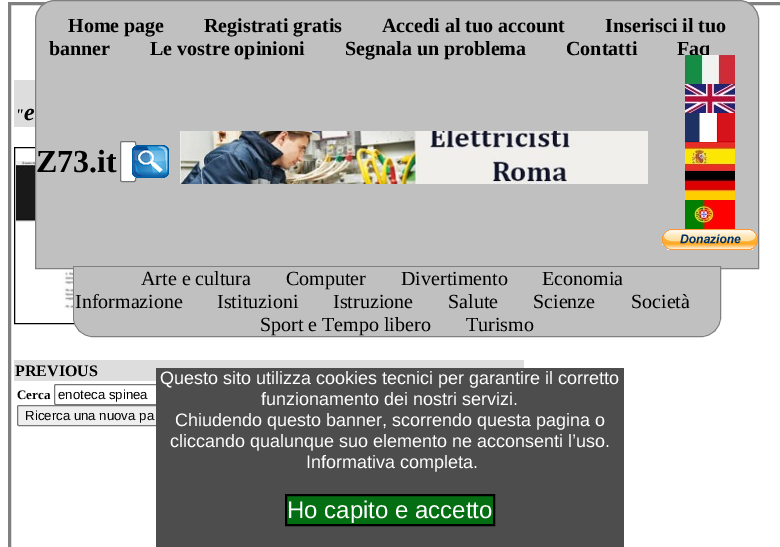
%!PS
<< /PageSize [780 547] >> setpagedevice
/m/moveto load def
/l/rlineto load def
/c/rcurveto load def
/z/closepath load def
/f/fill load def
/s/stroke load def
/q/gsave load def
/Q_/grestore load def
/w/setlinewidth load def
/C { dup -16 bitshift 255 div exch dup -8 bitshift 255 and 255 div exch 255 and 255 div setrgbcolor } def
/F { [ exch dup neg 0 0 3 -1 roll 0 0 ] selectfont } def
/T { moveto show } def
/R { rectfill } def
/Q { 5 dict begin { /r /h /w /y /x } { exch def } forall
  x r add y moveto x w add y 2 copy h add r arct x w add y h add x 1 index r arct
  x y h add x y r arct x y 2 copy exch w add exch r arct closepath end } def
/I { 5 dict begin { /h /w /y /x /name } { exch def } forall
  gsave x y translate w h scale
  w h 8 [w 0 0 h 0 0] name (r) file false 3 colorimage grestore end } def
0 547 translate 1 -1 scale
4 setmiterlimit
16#FFFFFF C
0 0 780 547 R
16#808080 C
3 w
9.5 3.5 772 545 rectstroke
16#000000 C
1 w
14.5 147.5 250 176 rectstroke
(10.rgb) 16 161 57 149 I
16#C0C0C0 C
55 .5 m 684 0 l 11 0 19.5 8.5 19.5 19.5 c 0 248.5 l -723 0 l 0 -248.5 l 0 -11 8.5 -19.5 19.5 -19.5 c z q f Q_
16#808080 C
s
/LiberationSerif-Bold 20 F
16#000000 C
(Home page) 68 32 T
(Registrati gratis) 204 32 T
(Accedi al tuo account) 382 32 T
(Inserisci il tuo) 605 32 T
(banner) 49 55 T
(Le vostre opinioni) 150 55 T
(Segnala un problema) 345 55 T
(Contatti) 566 55 T
(Faq) 677 55 T
/LiberationSerif-Bold 32 F
(Z73.it) 36 172 T
16#FFFFFF C
120.5 141.5 15 40 1.5 Q q f Q_
16#767676 C
s
(1.rgb) 132 145 37 33 I
(2.rgb) 180 131 468 53 I
(3.rgb) 685 55 50 29 I
(4.rgb) 685 84 50 29 I
(5.rgb) 685 113 50 29 I
(6.rgb) 685 142 50 29 I
(7.rgb) 685 171 50 29 I
(8.rgb) 685 200 50 29 I
(9.rgb) 662 229 96 21 I
16#C0C0C0 C
73.5 266.5 m 647 0 l 0 50.5 l 0 11 -8.5 19.5 -19.5 19.5 c -608 0 l -11 0 -19.5 -8.5 -19.5 -19.5 c z q f Q_
16#808080 C
s
16#C0C0C0 C
74 267 m 646 0 l 0 49 l 0 11 -9 20 -20 20 c -606 0 l -11 0 -20 -9 -20 -20 c z f
/LiberationSerif-Regular 20 F
16#000000 C
(Arte e cultura) 141 285 T
(Computer) 286 285 T
(Divertimento) 401 285 T
(Economia) 542 285 T
(Informazione) 75 308 T
(Istituzioni) 217 308 T
(Istruzione) 333 308 T
(Salute) 448 308 T
(Scienze) 533 308 T
(Società) 631 308 T
(Sport e Tempo libero) 260 331 T
(Turismo) 466 331 T
16#DDDDDD C
14 80 21 47 R
/LiberationSerif-BoldItalic 16 F
16#000000 C
(") 15 120 T
/LiberationSerif-BoldItalic 24 F
(e) 24 120 T
16#DDDDDD C
329 360 195 8 R
14 360 315 21 R
/LiberationSerif-Bold 16 F
16#000000 C
(PREVIOUS) 15 376 T
/LiberationSerif-Bold 13 F
(Cerca) 17 399 T
16#767676 C
54.5 384.5 344 20 1.5 Q s
/LiberationSans-Regular 13.25 F
16#000000 C
(enoteca spinea) 58 399 T
16#EFEFEF C
17.5 405.5 167 20 1.5 Q q f Q_
16#767676 C
s
16#000000 C
(Ricerca una nuova pa) 25 420 T
16#4D4D4D C
156 368 468 179 R
/LiberationSans-Regular 18 F
16#FFFFFF C
(Questo sito utilizza cookies tecnici per garantire il corretto) 160 384 T
(funzionamento dei nostri servizi.) 261 405 T
(Chiudendo questo banner, scorrendo questa pagina o) 175 426 T
(cliccando qualunque suo elemento ne acconsenti l’uso.) 170 447 T
(Informativa completa.) 306 468 T
16#046E13 C
286 495 m 208 0 l 0 30 l -208 0 l z q f Q_
16#000000 C
2 w
s
/LiberationSans-Regular 24 F
16#FFFFFF C
(Ho capito e accetto) 287 518 T
showpage
